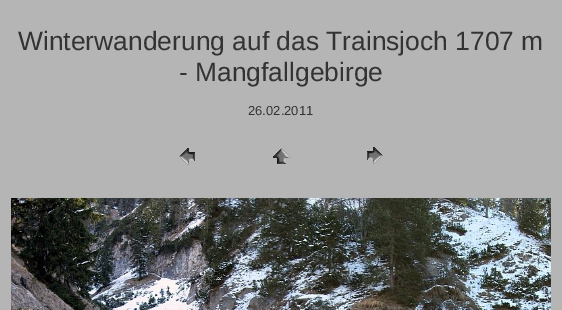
%!PS
<< /PageSize [562 310] >> setpagedevice
/C { dup -16 bitshift 255 div exch dup -8 bitshift 255 and 255 div exch 255 and 255 div setrgbcolor } def
/F { [ exch dup neg 0 0 3 -1 roll 0 0 ] selectfont } def
/T { moveto show } def
/R { rectfill } def
/I { 5 dict begin { /h /w /y /x /name } { exch def } forall
  gsave x y translate w h scale
  w h 8 [w 0 0 h 0 0] name (r) file false 3 colorimage grestore end } def
0 310 translate 1 -1 scale
4 setmiterlimit
16#B5B5B5 C
0 0 562 310 R
/LiberationSans-Regular 26.4 F
16#333333 C
(Winterwanderung auf das Trainsjoch 1707 m) 18 50 T
(- Mangfallgebirge) 179 81 T
/LiberationSans-Regular 13 F
(26.02.2011) 248 115 T
(1.rgb) 179 148 16 17 I
(2.rgb) 273 148 17 16 I
(3.rgb) 367 147 16 17 I
(4.rgb) 11 198 540 112 I
showpage
